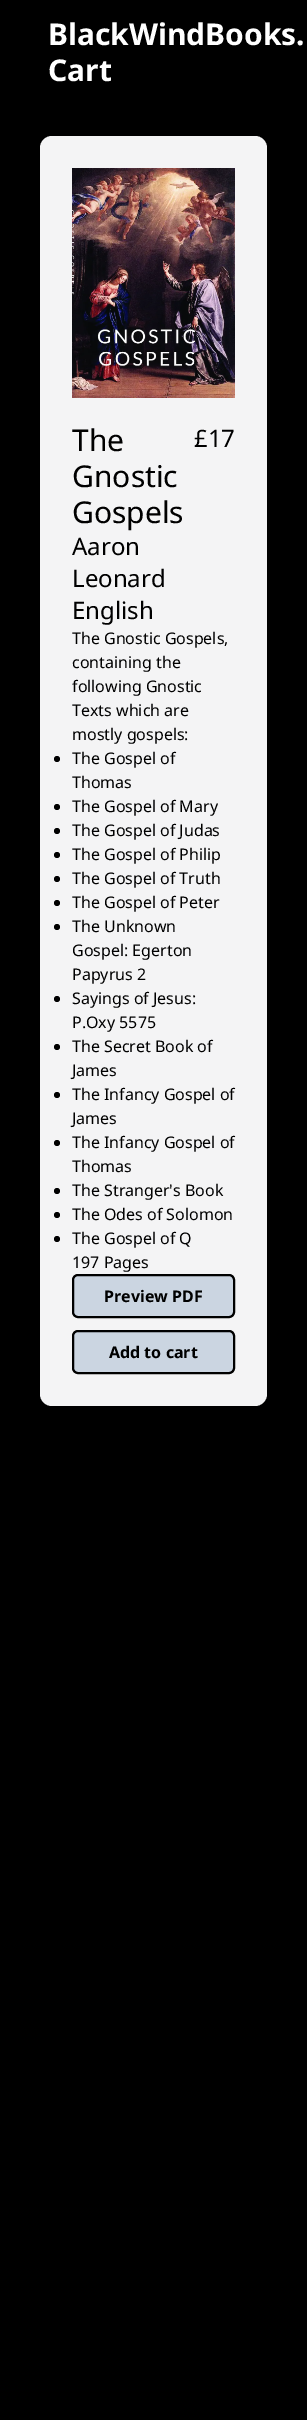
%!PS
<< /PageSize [307 2420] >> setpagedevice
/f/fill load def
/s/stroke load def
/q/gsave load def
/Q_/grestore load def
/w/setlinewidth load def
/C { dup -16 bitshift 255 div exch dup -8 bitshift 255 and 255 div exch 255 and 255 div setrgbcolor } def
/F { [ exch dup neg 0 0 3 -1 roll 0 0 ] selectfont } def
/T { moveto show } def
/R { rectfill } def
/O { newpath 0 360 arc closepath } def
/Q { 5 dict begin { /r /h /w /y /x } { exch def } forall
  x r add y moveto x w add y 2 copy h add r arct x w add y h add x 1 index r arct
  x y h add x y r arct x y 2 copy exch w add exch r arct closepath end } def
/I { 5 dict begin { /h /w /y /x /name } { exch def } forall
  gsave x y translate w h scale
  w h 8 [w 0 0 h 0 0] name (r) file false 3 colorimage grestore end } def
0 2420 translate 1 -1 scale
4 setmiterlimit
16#000000 C
0 0 307 2420 R
/NotoSans-Bold 30 F
16#FFFFFF C
(BlackWindBooks.) 48 45 T
(Cart) 48 81 T
16#F4F4F5 C
40 136 227 1270 12 Q f
(1.rgb) 72 168 163 230 I
/NotoSans-Regular 30 F
16#000000 C
(The) 72 451 T
(Gnostic) 72 487 T
(Gospels) 72 523 T
/NotoSans-Regular 24 F
(£17) 194 447 T
(Aaron) 72 555 T
(Leonard) 72 587 T
(English) 72 619 T
/NotoSans-Regular 16 F
(The Gnostic Gospels,) 72 644 T
(containing the) 72 668 T
(following Gnostic) 72 692 T
(Texts which are) 72 716 T
(mostly gospels:) 72 740 T
57 759 3 O f
(The Gospel of) 72 764 T
(Thomas) 72 788 T
57 807 3 O f
(The Gospel of Mary) 72 812 T
57 831 3 O f
(The Gospel of Judas) 72 836 T
57 855 3 O f
(The Gospel of Philip) 72 860 T
57 879 3 O f
(The Gospel of Truth) 72 884 T
57 903 3 O f
(The Gospel of Peter) 72 908 T
57 927 3 O f
(The Unknown) 72 932 T
(Gospel: Egerton) 72 956 T
(Papyrus 2) 72 980 T
57 999 3 O f
(Sayings of Jesus:) 72 1004 T
(P.Oxy 5575) 72 1028 T
57 1047 3 O f
(The Secret Book of) 72 1052 T
(James) 72 1076 T
57 1095 3 O f
(The Infancy Gospel of) 72 1100 T
(James) 72 1124 T
57 1143 3 O f
(The Infancy Gospel of) 72 1148 T
(Thomas) 72 1172 T
57 1191 3 O f
(The Stranger's Book) 72 1196 T
57 1215 3 O f
(The Odes of Solomon) 72 1220 T
57 1239 3 O f
(The Gospel of Q) 72 1244 T
(197 Pages) 72 1268 T
16#CBD5E1 C
73 1275 161 42 5 Q q f Q_
16#000000 C
2 w
s
/NotoSans-Bold 16 F
(Preview PDF) 104 1302 T
16#CBD5E1 C
73 1331 161 42 5 Q q f Q_
16#000000 C
s
(Add to cart) 109 1358 T
showpage
